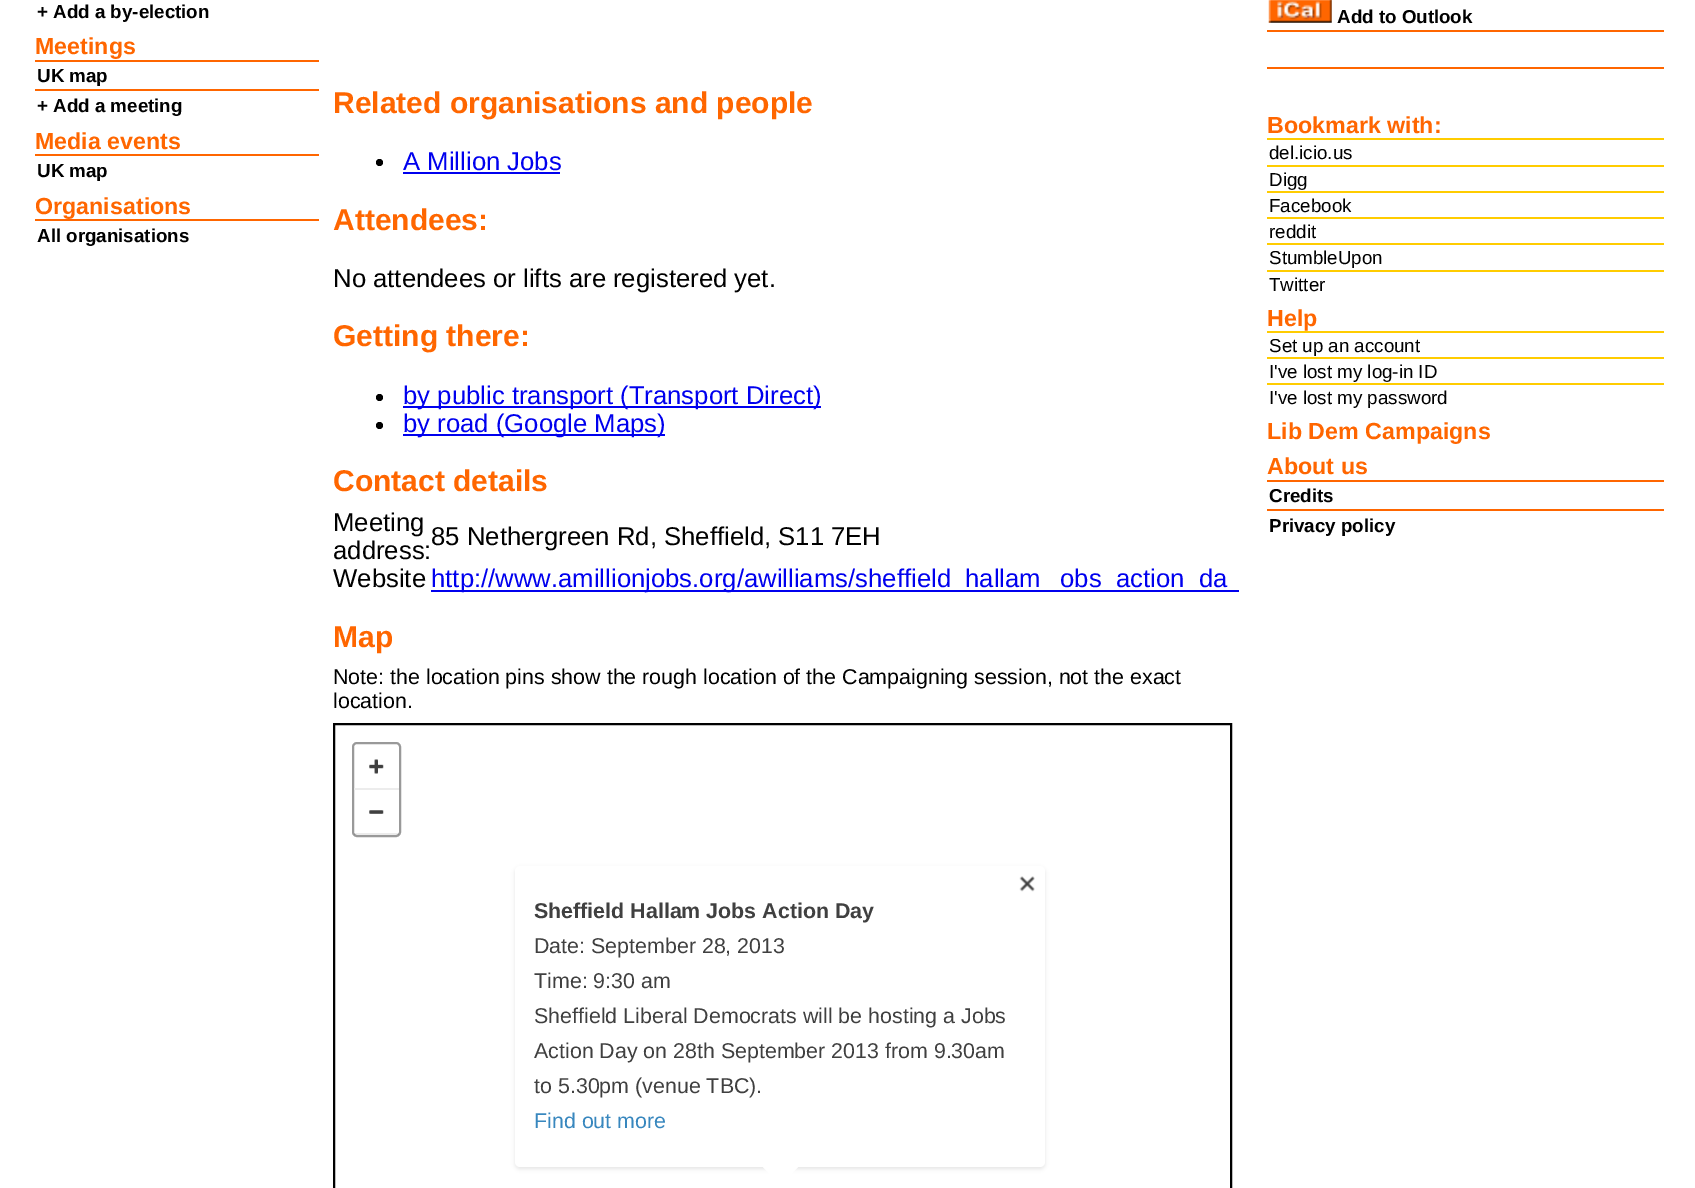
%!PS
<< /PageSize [1695 1188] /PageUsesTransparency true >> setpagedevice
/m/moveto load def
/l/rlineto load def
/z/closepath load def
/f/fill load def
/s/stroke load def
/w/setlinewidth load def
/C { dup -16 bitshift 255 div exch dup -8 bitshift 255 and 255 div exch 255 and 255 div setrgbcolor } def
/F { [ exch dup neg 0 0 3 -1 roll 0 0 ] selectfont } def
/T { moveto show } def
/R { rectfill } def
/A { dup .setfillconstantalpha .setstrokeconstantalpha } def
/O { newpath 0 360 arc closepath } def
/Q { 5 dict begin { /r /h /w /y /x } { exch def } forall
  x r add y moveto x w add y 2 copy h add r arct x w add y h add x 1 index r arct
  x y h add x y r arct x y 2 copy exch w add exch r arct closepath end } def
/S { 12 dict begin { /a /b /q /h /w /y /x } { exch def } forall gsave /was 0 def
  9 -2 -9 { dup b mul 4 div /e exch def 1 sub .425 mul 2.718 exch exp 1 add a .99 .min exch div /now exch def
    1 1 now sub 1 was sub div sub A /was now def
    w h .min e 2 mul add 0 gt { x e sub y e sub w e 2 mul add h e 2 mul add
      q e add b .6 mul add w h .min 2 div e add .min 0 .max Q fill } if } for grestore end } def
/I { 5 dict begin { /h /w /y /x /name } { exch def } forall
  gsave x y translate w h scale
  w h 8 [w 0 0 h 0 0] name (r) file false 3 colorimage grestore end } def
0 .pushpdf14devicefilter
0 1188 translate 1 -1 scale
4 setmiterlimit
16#FFFFFF C
0 0 1695 1188 R
/LiberationSans-Bold 18.75 F
16#000000 C
(+ Add a by-election) 37 18 T
/LiberationSans-Bold 23.25 F
16#FF6600 C
(Meetings) 35 54 T
35 60 284 2 R
/LiberationSans-Bold 18.75 F
16#000000 C
(UK map) 37 82 T
16#FF6600 C
35 89 284 2 R
16#000000 C
(+ Add a meeting) 37 112 T
/LiberationSans-Bold 23.25 F
16#FF6600 C
(Media events) 35 149 T
35 154 284 2 R
/LiberationSans-Bold 18.75 F
16#000000 C
(UK map) 37 177 T
/LiberationSans-Bold 23.25 F
16#FF6600 C
(Organisations) 35 214 T
35 219 284 2 R
/LiberationSans-Bold 18.75 F
16#000000 C
(All organisations) 37 242 T
/LiberationSans-Bold 30 F
16#FF6600 C
(Related organisations and people) 333 113 T
16#000000 C
379.5 162.5 3.5 O f
/LiberationSans-Regular 25.7 F
16#0000EE C
(A Million Jobs) 403 170 T
403 172 157 2 R
/LiberationSans-Bold 30 F
16#FF6600 C
(Attendees:) 333 230 T
/LiberationSans-Regular 25.7 F
16#000000 C
(No attendees or lifts are registered yet.) 333 287 T
/LiberationSans-Bold 30 F
16#FF6600 C
(Getting there:) 333 346 T
16#000000 C
379.5 397.5 3.5 O f
16#0000EE C
403 406 418 2 R
/LiberationSans-Regular 25.7 F
(by public transport \(Transport Direct\)) 403 404 T
16#000000 C
379.5 425.5 3.5 O f
16#0000EE C
403 434 262 2 R
(by road \(Google Maps\)) 403 432 T
/LiberationSans-Bold 30 F
16#FF6600 C
(Contact details) 333 491 T
/LiberationSans-Regular 25.7 F
16#000000 C
(Meeting) 333 531 T
(address:) 333 559 T
(85 Nethergreen Rd, Sheffield, S11 7EH) 431 545 T
(Website) 333 587 T
16#0000EE C
431 590 808 2 R
(http://www.amillionjobs.org/awilliams/sheffield_hallam) 431 587 T
(obs_action_da) 1060 587 T
/LiberationSans-Bold 30 F
16#FF6600 C
(Map) 333 647 T
/LiberationSans-Regular 21.4 F
16#000000 C
(Note: the location pins show the rough location of the Campaigning session, not the exact) 333 684 T
(location.) 333 708 T
2 w
334 724 897 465 rectstroke
16#999999 C
353 743 47 93 4 Q s
(1.rgb) 369 759 15 15 I
16#ECECEC C
354 788 45 2 R
(2.rgb) 369 810 15 4 I
0.08 A
16#000000 C
354 833 45 2 R
1 A
515 868 530 301 5 2 .1 S
16#FFFFFF C
515 866 530 301 5 Q f
(3.rgb) 1019 876 16 16 I
/LiberationSans-Bold 21.4 F
16#404040 C
(Sheffield Hallam Jobs Action Day) 534 918 T
/LiberationSans-Regular 21.4 F
(Date: September 28, 2013) 534 953 T
(Time: 9:30 am) 534 988 T
(Sheffield Liberal Democrats will be hosting a Jobs) 534 1023 T
(Action Day on 28th September 2013 from 9.30am) 534 1058 T
(to 5.30pm \(venue TBC\).) 534 1093 T
16#3887BE C
(Find out more) 534 1128 T
16#FFFFFF C
763 1167 m 35 0 l -17.5 18 l z f
(4.rgb) 1268 0 64 23 I
/LiberationSans-Bold 18.75 F
16#000000 C
(Add to Outlook) 1337 23 T
16#FF6600 C
1267 30 397 2 R
1267 67 397 2 R
/LiberationSans-Bold 23.25 F
(Bookmark with:) 1267 133 T
16#FFCC00 C
1267 138 397 2 R
/LiberationSans-Regular 18.75 F
16#000000 C
(del.icio.us) 1269 159 T
16#FFCC00 C
1267 165 397 2 R
16#000000 C
(Digg) 1269 186 T
16#FFCC00 C
1267 191 397 2 R
16#000000 C
(Facebook) 1269 212 T
16#FFCC00 C
1267 217 397 2 R
16#000000 C
(reddit) 1269 238 T
16#FFCC00 C
1267 243 397 2 R
16#000000 C
(StumbleUpon) 1269 264 T
16#FFCC00 C
1267 270 397 2 R
16#000000 C
(Twitter) 1269 291 T
/LiberationSans-Bold 23.25 F
16#FF6600 C
(Help) 1267 326 T
16#FFCC00 C
1267 331 397 2 R
/LiberationSans-Regular 18.75 F
16#000000 C
(Set up an account) 1269 352 T
16#FFCC00 C
1267 357 397 2 R
16#000000 C
(I've lost my log-in ID) 1269 378 T
16#FFCC00 C
1267 383 397 2 R
16#000000 C
(I've lost my password) 1269 404 T
/LiberationSans-Bold 23.25 F
16#FF6600 C
(Lib Dem Campaigns) 1267 439 T
(About us) 1267 474 T
1267 480 397 2 R
/LiberationSans-Bold 18.75 F
16#000000 C
(Credits) 1269 502 T
16#FF6600 C
1267 509 397 2 R
16#000000 C
(Privacy policy) 1269 532 T
.poppdf14devicefilter showpage
